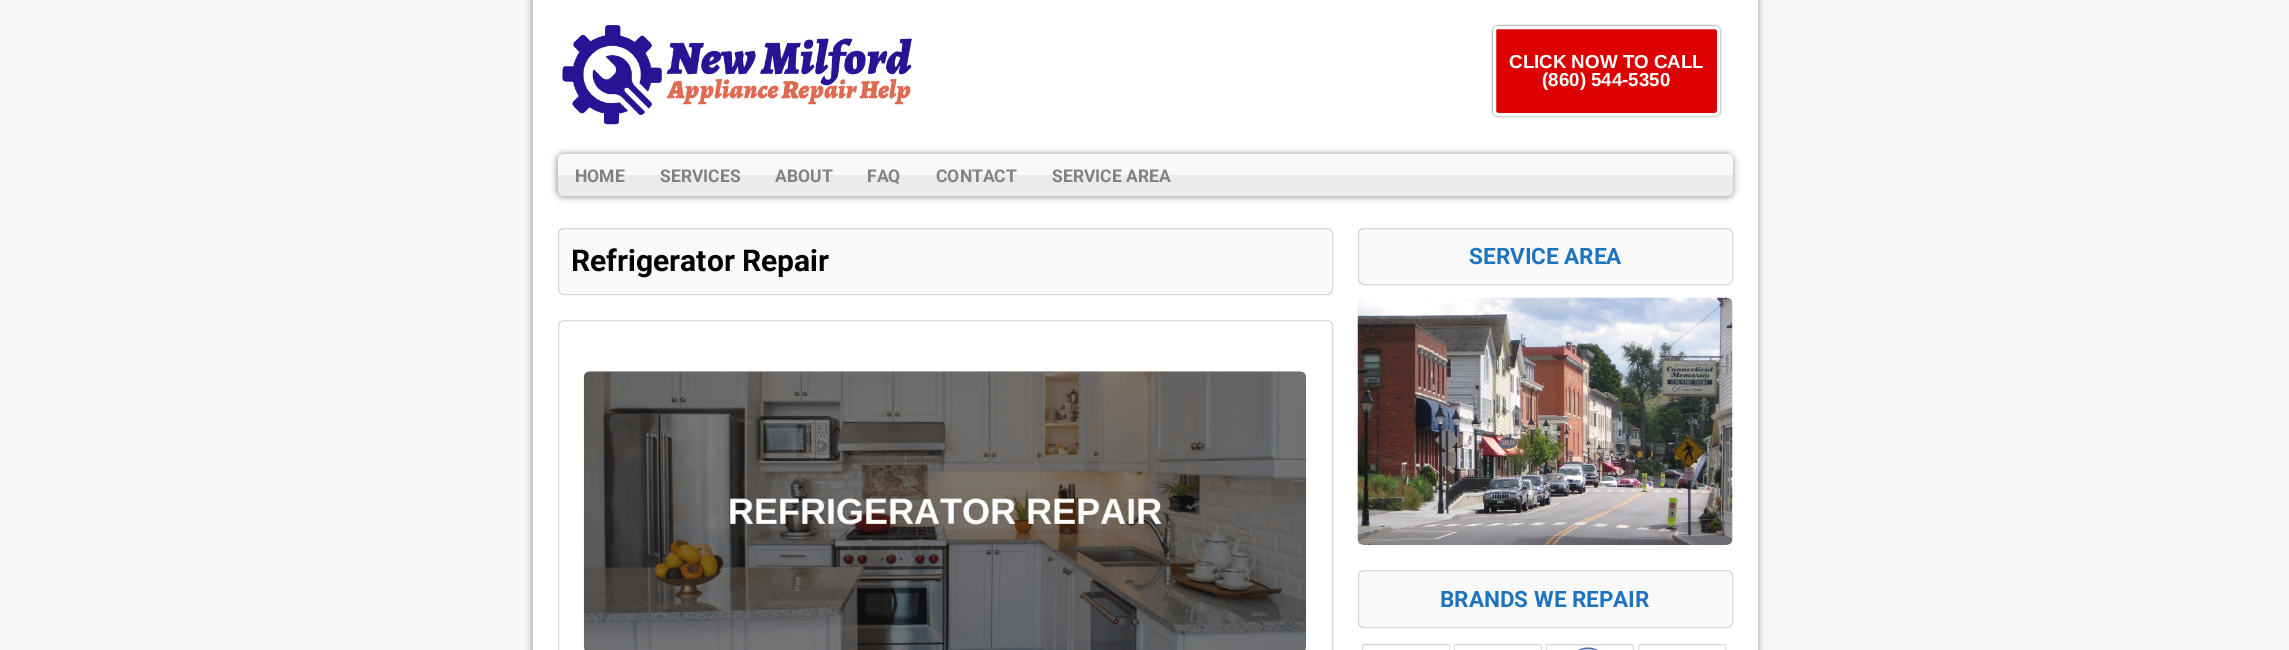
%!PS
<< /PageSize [2289 650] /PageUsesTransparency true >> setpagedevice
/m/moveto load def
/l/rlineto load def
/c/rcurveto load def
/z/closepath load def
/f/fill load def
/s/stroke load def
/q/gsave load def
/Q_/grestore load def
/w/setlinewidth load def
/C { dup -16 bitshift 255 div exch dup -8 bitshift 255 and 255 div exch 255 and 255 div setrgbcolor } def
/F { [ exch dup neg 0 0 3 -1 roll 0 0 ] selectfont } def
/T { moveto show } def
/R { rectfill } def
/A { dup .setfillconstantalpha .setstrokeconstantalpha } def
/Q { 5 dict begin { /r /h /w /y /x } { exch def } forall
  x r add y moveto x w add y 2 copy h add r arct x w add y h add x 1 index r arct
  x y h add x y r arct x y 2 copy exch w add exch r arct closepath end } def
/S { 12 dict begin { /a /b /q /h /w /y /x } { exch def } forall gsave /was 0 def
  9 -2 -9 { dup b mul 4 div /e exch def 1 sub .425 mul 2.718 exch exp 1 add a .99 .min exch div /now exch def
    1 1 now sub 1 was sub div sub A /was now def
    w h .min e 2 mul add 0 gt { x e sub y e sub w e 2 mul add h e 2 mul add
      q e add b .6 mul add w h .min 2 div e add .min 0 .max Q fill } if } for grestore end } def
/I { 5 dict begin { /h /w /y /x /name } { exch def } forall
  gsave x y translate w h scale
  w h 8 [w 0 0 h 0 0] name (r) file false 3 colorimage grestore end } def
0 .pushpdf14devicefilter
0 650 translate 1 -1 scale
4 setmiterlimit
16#F7F7F7 C
0 0 2289 650 R
16#A8A8A8 C
531 -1 1228 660 0 3 1 S
16#FFFFFF C
533 0 1225 203 R
(1.rgb) 562 25 350 100 I
16#333333 C
1493 26 227 90 5 1 1 S
16#DD0000 C
1494.5 27.5 224 87 3.5 Q q f Q_
16#FFFFFF C
3 w
s
/LiberationSans-Bold 18.75 F
(CLICK NOW TO CALL) 1509 68 T
(\(860\) 544-5350) 1542 86 T
16#A8A8A8 C
556 153 1178 45 8 3 1 S
16#F9F9F9 C
564 154 m 1163 0 l 3.5 0 6 2.5 6 6 c 0 15 l -1175 0 l 0 -15 l 0 -3.5 2.5 -6 6 -6 c z f
16#EBEBEB C
558 175 m 1175 0 l 0 15 l 0 3.5 -2.5 6 -6 6 c -1163 0 l -3.5 0 -6 -2.5 -6 -6 c z f
/Roboto-Bold 17.5 F
16#828282 C
(HOME) 575 182 T
(SERVICES) 660 182 T
(ABOUT) 775 182 T
(FAQ) 867 182 T
(CONTACT) 936 182 T
(SERVICE AREA) 1052 182 T
16#FFFFFF C
533 203 1225 447 R
16#F9F9F9 C
558.5 228.5 774 66 5.5 Q q f Q_
16#D8D8D8 C
1 w
s
/Roboto-Bold 30 F
16#000000 C
(Refrigerator Repair) 571 271 T
16#D8D8D8 C
558.5 320.5 774 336 5.5 Q s
(2.rgb) 583 371 724 279 I
16#F9F9F9 C
1358.5 228.5 374 56 5.5 Q q f Q_
16#D8D8D8 C
s
/Roboto-Bold 22.5 F
16#1E73BE C
(SERVICE AREA) 1469 264 T
(3.rgb) 1357 297 376 248 I
16#F9F9F9 C
1358.5 570.5 374 57 5.5 Q q f Q_
16#D8D8D8 C
s
16#1E73BE C
(BRANDS WE REPAIR) 1440 607 T
(4.rgb) 1362 644 365 6 I
.poppdf14devicefilter showpage
